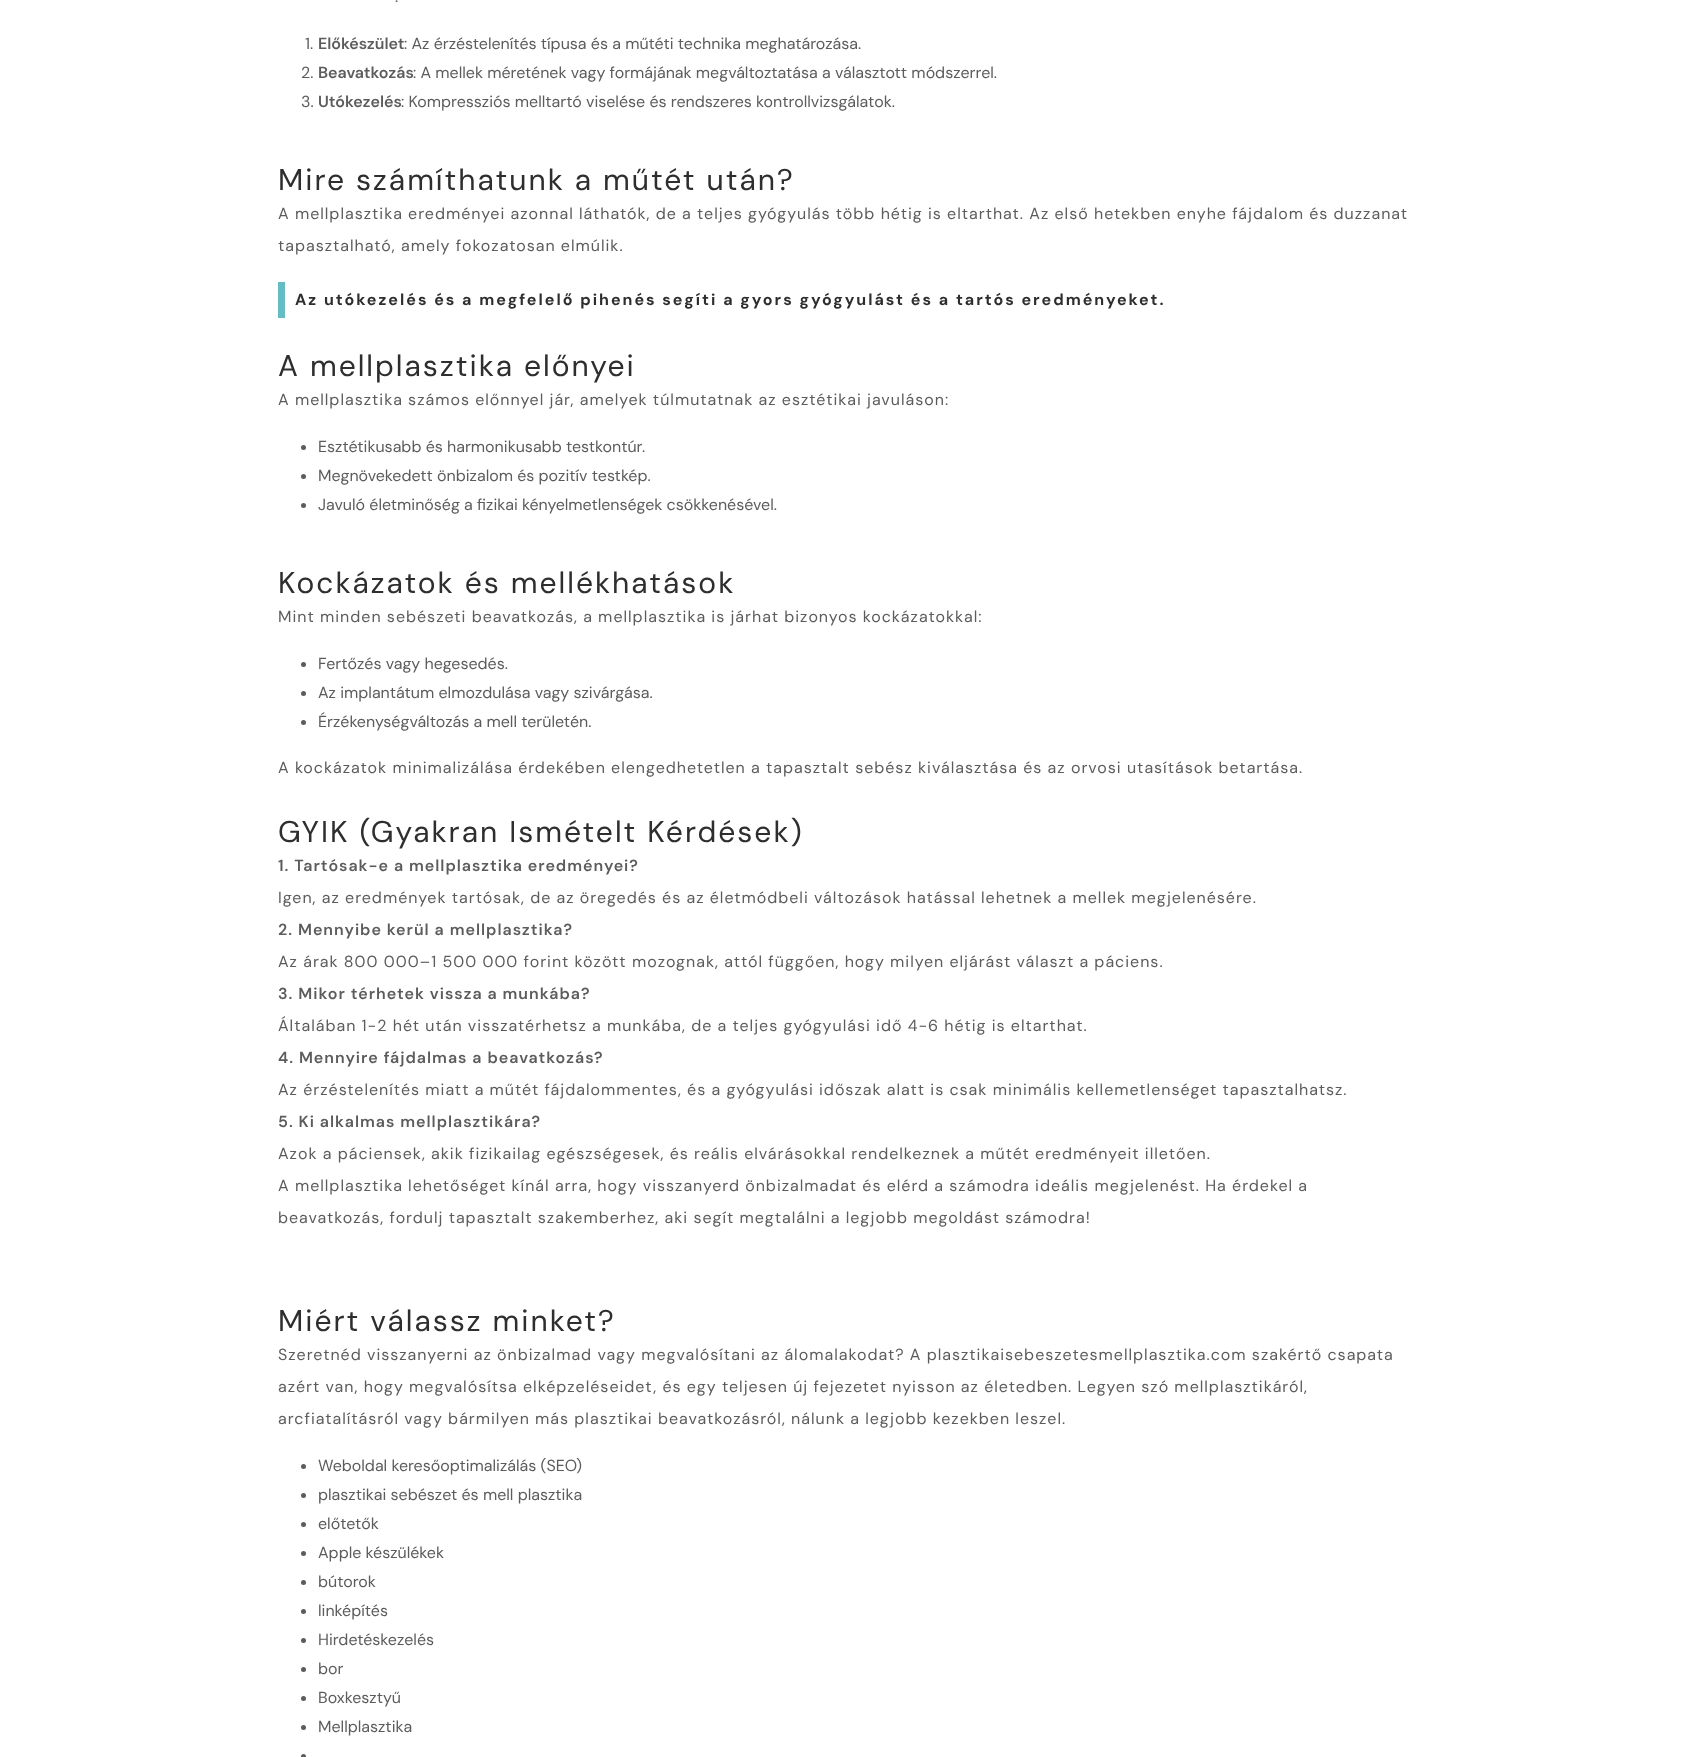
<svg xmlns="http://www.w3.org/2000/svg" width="1695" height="1757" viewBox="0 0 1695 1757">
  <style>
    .t1 { font: 16px DM Sans; letter-spacing: 1px; fill: #5c5c5c; }
    .t2 { font: 16px DM Sans; fill: #5c5c5c; }
    .t3 { font: 600 16px DM Sans; fill: #5c5c5c; }
    .t4 { font: 30px DM Sans; letter-spacing: 2px; fill: #2e2e2e; }
    .t5 { font: bold 16px DM Sans; letter-spacing: 2px; fill: #2e2e2e; }
    .t6 { font: 600 16px DM Sans; letter-spacing: 1px; fill: #5c5c5c; }
  </style>
  <rect width="100%" height="100%" fill="#fff"/>
  <text x="395" y="2" class="t1">.</text>
  <text x="305" y="49" class="t2">1.</text>
  <text x="318" y="49" class="t3">Előkészület</text>
  <text x="404" y="49" class="t2">: Az érzéstelenítés típusa és a műtéti technika meghatározása.</text>
  <text x="301" y="78" class="t2">2.</text>
  <text x="318" y="78" class="t3">Beavatkozás</text>
  <text x="413" y="78" class="t2">: A mellek méretének vagy formájának megváltoztatása a választott módszerrel.</text>
  <text x="301" y="107" class="t2">3.</text>
  <text x="318" y="107" class="t3">Utókezelés</text>
  <text x="401" y="107" class="t2">: Kompressziós melltartó viselése és rendszeres kontrollvizsgálatok.</text>
  <text x="278" y="190" class="t4">Mire számíthatunk a műtét után?</text>
  <text x="278" y="219" class="t1">A mellplasztika eredményei azonnal láthatók, de a teljes gyógyulás több hétig is eltarthat. Az első hetekben enyhe fájdalom és duzzanat</text>
  <text x="278" y="251" class="t1">tapasztalható, amely fokozatosan elmúlik.</text>
  <rect x="278" y="282" width="7" height="36" fill="#65bcc3"/>
  <text x="295" y="305" class="t5">Az utókezelés és a megfelelő pihenés segíti a gyors gyógyulást és a tartós eredményeket.</text>
  <text x="278" y="376" class="t4">A mellplasztika előnyei</text>
  <text x="278" y="405" class="t1">A mellplasztika számos előnnyel jár, amelyek túlmutatnak az esztétikai javuláson:</text>
  <circle cx="303.5" cy="447.5" r="2.5" fill="#5c5c5c"/>
  <text x="318" y="452" class="t2">Esztétikusabb és harmonikusabb testkontúr.</text>
  <circle cx="303.5" cy="476.5" r="2.5" fill="#5c5c5c"/>
  <text x="318" y="481" class="t2">Megnövekedett önbizalom és pozitív testkép.</text>
  <circle cx="303.5" cy="505.5" r="2.5" fill="#5c5c5c"/>
  <text x="318" y="510" class="t2">Javuló életminőség a fizikai kényelmetlenségek csökkenésével.</text>
  <text x="278" y="593" class="t4">Kockázatok és mellékhatások</text>
  <text x="278" y="622" class="t1">Mint minden sebészeti beavatkozás, a mellplasztika is járhat bizonyos kockázatokkal:</text>
  <circle cx="303.5" cy="664.5" r="2.5" fill="#5c5c5c"/>
  <text x="318" y="669" class="t2">Fertőzés vagy hegesedés.</text>
  <circle cx="303.5" cy="693.5" r="2.5" fill="#5c5c5c"/>
  <text x="318" y="698" class="t2">Az implantátum elmozdulása vagy szivárgása.</text>
  <circle cx="303.5" cy="722.5" r="2.5" fill="#5c5c5c"/>
  <text x="318" y="727" class="t2">Érzékenységváltozás a mell területén.</text>
  <text x="278" y="773" class="t1">A kockázatok minimalizálása érdekében elengedhetetlen a tapasztalt sebész kiválasztása és az orvosi utasítások betartása.</text>
  <text x="278" y="842" class="t4">GYIK (Gyakran Ismételt Kérdések)</text>
  <text x="278" y="871" class="t6">1. Tartósak-e a mellplasztika eredményei?</text>
  <text x="278" y="903" class="t1">Igen, az eredmények tartósak, de az öregedés és az életmódbeli változások hatással lehetnek a mellek megjelenésére.</text>
  <text x="278" y="935" class="t6">2. Mennyibe kerül a mellplasztika?</text>
  <text x="278" y="967" class="t1">Az árak 800 000–1 500 000 forint között mozognak, attól függően, hogy milyen eljárást választ a páciens.</text>
  <text x="278" y="999" class="t6">3. Mikor térhetek vissza a munkába?</text>
  <text x="278" y="1031" class="t1">Általában 1-2 hét után visszatérhetsz a munkába, de a teljes gyógyulási idő 4-6 hétig is eltarthat.</text>
  <text x="278" y="1063" class="t6">4. Mennyire fájdalmas a beavatkozás?</text>
  <text x="278" y="1095" class="t1">Az érzéstelenítés miatt a műtét fájdalommentes, és a gyógyulási időszak alatt is csak minimális kellemetlenséget tapasztalhatsz.</text>
  <text x="278" y="1127" class="t6">5. Ki alkalmas mellplasztikára?</text>
  <text x="278" y="1159" class="t1">Azok a páciensek, akik fizikailag egészségesek, és reális elvárásokkal rendelkeznek a műtét eredményeit illetően.</text>
  <text x="278" y="1191" class="t1">A mellplasztika lehetőséget kínál arra, hogy visszanyerd önbizalmadat és elérd a számodra ideális megjelenést. Ha érdekel a</text>
  <text x="278" y="1223" class="t1">beavatkozás, fordulj tapasztalt szakemberhez, aki segít megtalálni a legjobb megoldást számodra!</text>
  <text x="278" y="1331" class="t4">Miért válassz minket?</text>
  <text x="278" y="1360" class="t1">Szeretnéd visszanyerni az önbizalmad vagy megvalósítani az álomalakodat? A plasztikaisebeszetesmellplasztika.com szakértő csapata</text>
  <text x="278" y="1392" class="t1">azért van, hogy megvalósítsa elképzeléseidet, és egy teljesen új fejezetet nyisson az életedben. Legyen szó mellplasztikáról,</text>
  <text x="278" y="1424" class="t1">arcfiatalításról vagy bármilyen más plasztikai beavatkozásról, nálunk a legjobb kezekben leszel.</text>
  <circle cx="303.5" cy="1466.5" r="2.5" fill="#5c5c5c"/>
  <text x="318" y="1471" class="t2">Weboldal keresőoptimalizálás (SEO)</text>
  <circle cx="303.5" cy="1495.5" r="2.5" fill="#5c5c5c"/>
  <text x="318" y="1500" class="t2">plasztikai sebészet és mell plasztika</text>
  <circle cx="303.5" cy="1524.5" r="2.5" fill="#5c5c5c"/>
  <text x="318" y="1529" class="t2">előtetők</text>
  <circle cx="303.5" cy="1553.5" r="2.5" fill="#5c5c5c"/>
  <text x="318" y="1558" class="t2">Apple készülékek</text>
  <circle cx="303.5" cy="1582.5" r="2.5" fill="#5c5c5c"/>
  <text x="318" y="1587" class="t2">bútorok</text>
  <circle cx="303.5" cy="1611.5" r="2.5" fill="#5c5c5c"/>
  <text x="318" y="1616" class="t2">linképítés</text>
  <circle cx="303.5" cy="1640.5" r="2.5" fill="#5c5c5c"/>
  <text x="318" y="1645" class="t2">Hirdetéskezelés</text>
  <circle cx="303.5" cy="1669.5" r="2.5" fill="#5c5c5c"/>
  <text x="318" y="1674" class="t2">bor</text>
  <circle cx="303.5" cy="1698.5" r="2.5" fill="#5c5c5c"/>
  <text x="318" y="1703" class="t2">Boxkesztyű</text>
  <circle cx="303.5" cy="1727.5" r="2.5" fill="#5c5c5c"/>
  <text x="318" y="1732" class="t2">Mellplasztika</text>
  <circle cx="303.5" cy="1756.5" r="2.5" fill="#5c5c5c"/>
</svg>
